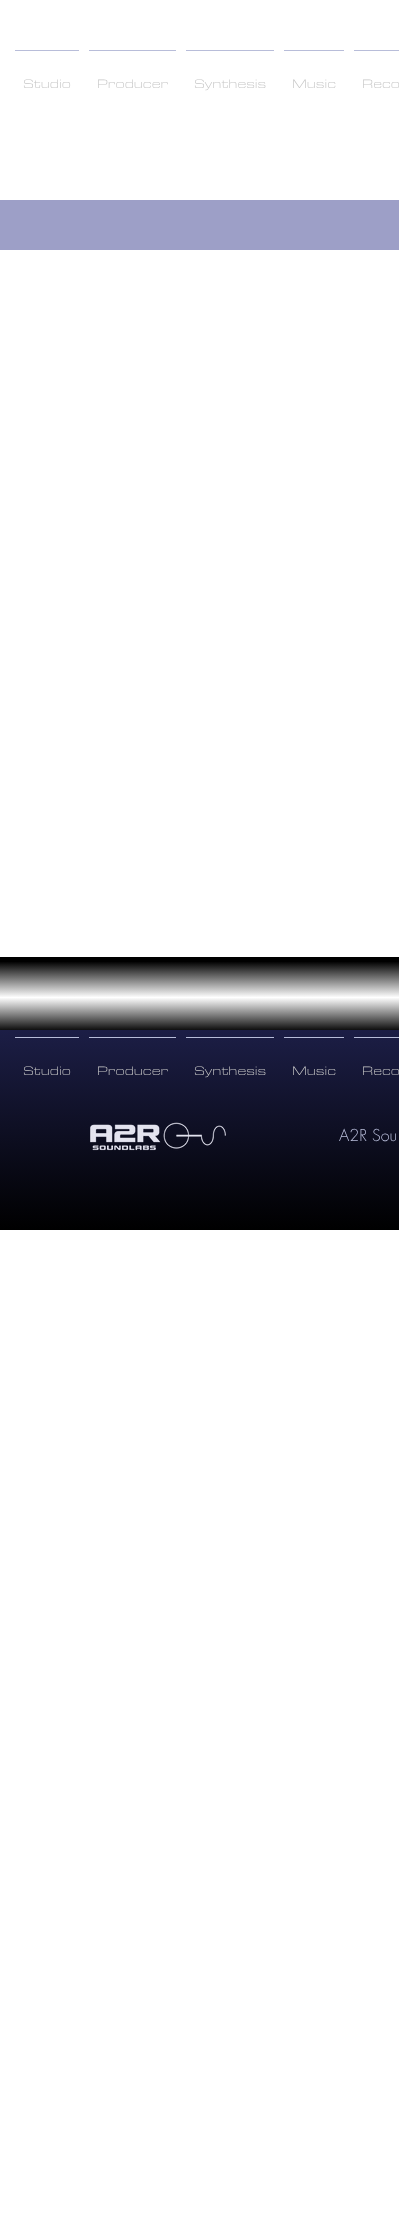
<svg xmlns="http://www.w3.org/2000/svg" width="399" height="2234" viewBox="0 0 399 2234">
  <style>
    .t1 { font: 300 15px 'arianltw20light'; fill: #c7c7c7; }
    .t2 { font: 300 16px futura; fill: #b8bdd9; }
  </style>
  <defs>
    <linearGradient id="g1" gradientUnits="userSpaceOnUse" x1="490" y1="1032" x2="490" y2="957"><stop offset="0" stop-color="#000"/><stop offset="0.46" stop-color="#fff"/><stop offset="0.94" stop-color="#000"/></linearGradient>
    <linearGradient id="g2" gradientUnits="userSpaceOnUse" x1="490" y1="1030" x2="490" y2="1230"><stop offset="0" stop-color="#1c1e46"/><stop offset="1" stop-color="#000"/></linearGradient>
  </defs>
  <rect width="100%" height="100%" fill="#fff"/>
  <rect x="15" y="50" width="64" height="1" fill="#b8bdd9"/>
  <text x="23" y="88" class="t1">Studio</text>
  <rect x="89" y="50" width="87" height="1" fill="#b8bdd9"/>
  <text x="97" y="88" class="t1">Producer</text>
  <rect x="186" y="50" width="88" height="1" fill="#b8bdd9"/>
  <text x="194" y="88" class="t1">Synthesis</text>
  <rect x="284" y="50" width="60" height="1" fill="#b8bdd9"/>
  <text x="292" y="88" class="t1">Music</text>
  <rect x="354" y="50" width="45" height="1" fill="#b8bdd9"/>
  <text x="362" y="88" class="t1">Reco</text>
  <rect x="0" y="200" width="399" height="50" fill="#9d9fc7"/>
  <rect x="0" y="957" width="399" height="73" fill="url(#g1)"/>
  <rect x="0" y="1030" width="399" height="200" fill="url(#g2)"/>
  <rect x="15" y="1037" width="64" height="1" fill="#b8bdd9"/>
  <text x="23" y="1075" class="t1">Studio</text>
  <rect x="89" y="1037" width="87" height="1" fill="#b8bdd9"/>
  <text x="97" y="1075" class="t1">Producer</text>
  <rect x="186" y="1037" width="88" height="1" fill="#b8bdd9"/>
  <text x="194" y="1075" class="t1">Synthesis</text>
  <rect x="284" y="1037" width="60" height="1" fill="#b8bdd9"/>
  <text x="292" y="1075" class="t1">Music</text>
  <rect x="354" y="1037" width="45" height="1" fill="#b8bdd9"/>
  <text x="362" y="1075" class="t1">Reco</text>
  <image x="90" y="1122" width="136" height="29" href="images/1.png"/>
  <text x="339" y="1141" class="t2">A2R Sou</text>
</svg>
